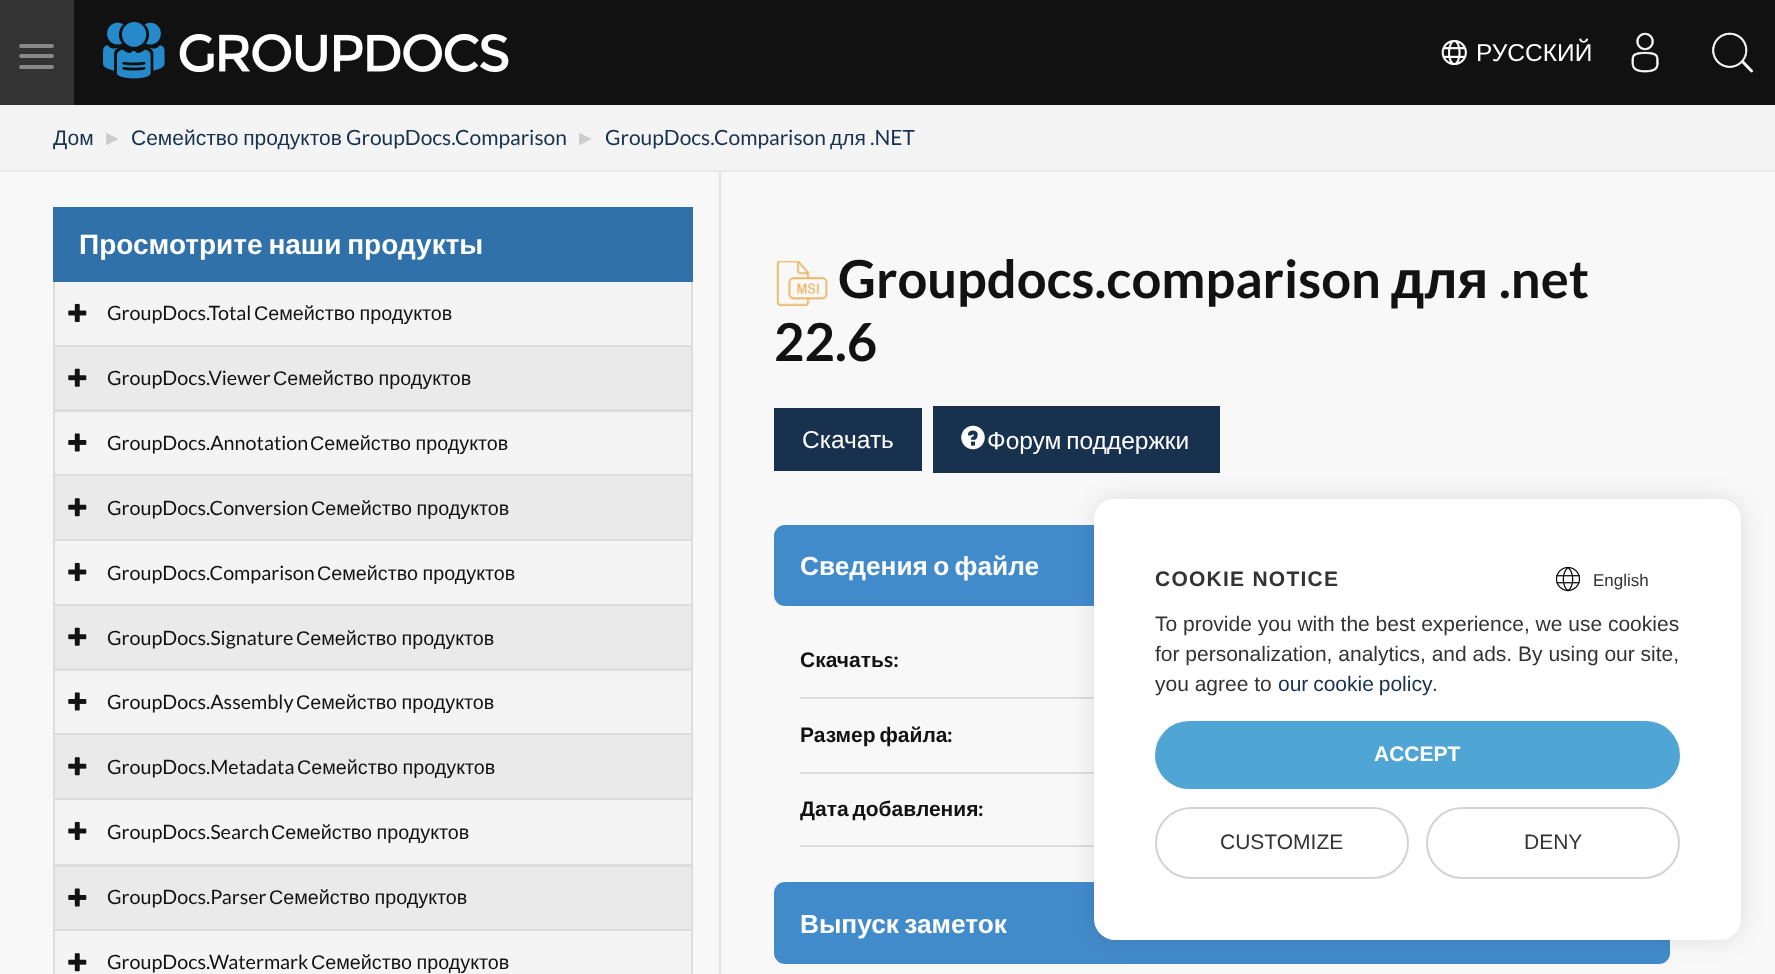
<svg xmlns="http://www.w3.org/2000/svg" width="1775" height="974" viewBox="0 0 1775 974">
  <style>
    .t1 { font: 24.5px Liberation Sans; fill: #fff; }
    .t2 { font: 21px Liberation Sans; fill: #17314f; }
    .t3 { font: 21px Liberation Sans; fill: #ccc; }
    .t4 { font: 21px Lato; fill: #17314f; }
    .t5 { font: bold 28px Liberation Sans; fill: #fff; }
    .t6 { font: 19.75px Lato; fill: #121212; }
    .t7 { font: 19.75px Liberation Sans; fill: #121212; }
    .t8 { font: bold 52.5px Lato; fill: #121212; }
    .t9 { font: bold 52.5px Liberation Sans; fill: #121212; }
    .t10 { font: bold 26.25px Liberation Sans; fill: #fff; }
    .t11 { font: bold 21px Liberation Sans; fill: #121212; }
    .t12 { font: bold 21px Lato; fill: #121212; }
    .t13 { font: bold 21px Liberation Sans; letter-spacing: 1.25px; fill: #333; }
    .t14 { font: 17px Liberation Sans; fill: #333; }
    .t15 { font: 21px Liberation Sans; fill: #333; }
    .t16 { font: bold 21px Liberation Sans; fill: #fff; }
  </style>
  <rect width="100%" height="100%" fill="#f4f4f4"/>
  <rect x="74" y="0" width="1701" height="105" fill="#111"/>
  <rect x="0" y="0" width="74" height="105" fill="#333"/>
  <rect x="19" y="44" width="35" height="4" rx="2" fill="#888"/>
  <rect x="19" y="54" width="35" height="4" rx="2" fill="#888"/>
  <rect x="19" y="65" width="35" height="4" rx="2" fill="#888"/>
  <image x="103" y="21" width="406" height="58" href="images/1.png"/>
  <image x="1441" y="40" width="26" height="25" href="images/2.png"/>
  <text x="1476" y="61" class="t1">РУССКИЙ</text>
  <image x="1631" y="32" width="28" height="41" href="images/3.png"/>
  <image x="1712" y="32" width="41" height="41" href="images/4.png"/>
  <rect x="0" y="170" width="1775" height="2" fill="#e9e9e9"/>
  <text x="53" y="145" class="t2">Дом</text>
  <text x="102" y="145" class="t3">►</text>
  <text x="131" y="145" word-spacing="-1" class="t2">Семейство продуктов</text>
  <text x="346" y="145" class="t4">GroupDocs.Comparison</text>
  <text x="575" y="145" class="t3">►</text>
  <text x="605" y="145" class="t4">GroupDocs.Comparison</text>
  <text x="830" y="145" class="t2">для</text>
  <text x="870" y="145" class="t4">.NET</text>
  <rect x="0" y="172" width="1775" height="802" fill="#f8f8f8"/>
  <rect x="719" y="172" width="2" height="802" fill="#e3e3e3"/>
  <rect x="53" y="207" width="640" height="75" fill="#3071a9"/>
  <text x="79" y="254" word-spacing="-2" class="t5">Просмотрите наши продукты</text>
  <rect x="55" y="282" width="636" height="63" fill="#f4f4f4"/>
  <rect x="691" y="282" width="2" height="65" fill="#ddd"/>
  <rect x="53" y="282" width="2" height="65" fill="#ddd"/>
  <image x="68" y="303" width="19" height="19" href="images/5.png"/>
  <text x="107" y="320" class="t6">GroupDocs.Total</text>
  <text x="254" y="320" word-spacing="-1" class="t7">Семейство продуктов</text>
  <rect x="54" y="346" width="638" height="64" fill="#eaeaea" stroke="#ddd" stroke-width="2"/>
  <image x="68" y="368" width="19" height="19" href="images/6.png"/>
  <text x="107" y="385" class="t6">GroupDocs.Viewer</text>
  <text x="273" y="385" word-spacing="-1" class="t7">Семейство продуктов</text>
  <rect x="54" y="411" width="638" height="64" fill="#f4f4f4" stroke="#ddd" stroke-width="2"/>
  <image x="68" y="433" width="19" height="19" href="images/7.png"/>
  <text x="107" y="450" class="t6">GroupDocs.Annotation</text>
  <text x="310" y="450" word-spacing="-1" class="t7">Семейство продуктов</text>
  <rect x="54" y="475" width="638" height="65" fill="#eaeaea" stroke="#ddd" stroke-width="2"/>
  <image x="68" y="498" width="19" height="19" href="images/8.png"/>
  <text x="107" y="515" class="t6">GroupDocs.Conversion</text>
  <text x="311" y="515" word-spacing="-1" class="t7">Семейство продуктов</text>
  <rect x="54" y="540" width="638" height="65" fill="#f4f4f4" stroke="#ddd" stroke-width="2"/>
  <image x="68" y="562" width="19" height="19" href="images/5.png"/>
  <text x="107" y="580" class="t6">GroupDocs.Comparison</text>
  <text x="317" y="580" word-spacing="-1" class="t7">Семейство продуктов</text>
  <rect x="54" y="605" width="638" height="64" fill="#eaeaea" stroke="#ddd" stroke-width="2"/>
  <image x="68" y="627" width="19" height="19" href="images/6.png"/>
  <text x="107" y="645" class="t6">GroupDocs.Signature</text>
  <text x="296" y="645" word-spacing="-1" class="t7">Семейство продуктов</text>
  <rect x="54" y="670" width="638" height="64" fill="#f4f4f4" stroke="#ddd" stroke-width="2"/>
  <image x="68" y="692" width="19" height="19" href="images/7.png"/>
  <text x="107" y="709" class="t6">GroupDocs.Assembly</text>
  <text x="296" y="709" word-spacing="-1" class="t7">Семейство продуктов</text>
  <rect x="54" y="734" width="638" height="65" fill="#eaeaea" stroke="#ddd" stroke-width="2"/>
  <image x="68" y="757" width="19" height="19" href="images/8.png"/>
  <text x="107" y="774" class="t6">GroupDocs.Metadata</text>
  <text x="297" y="774" word-spacing="-1" class="t7">Семейство продуктов</text>
  <rect x="54" y="799" width="638" height="66" fill="#f4f4f4" stroke="#ddd" stroke-width="2"/>
  <image x="68" y="821" width="19" height="19" href="images/5.png"/>
  <text x="107" y="839" class="t6">GroupDocs.Search</text>
  <text x="271" y="839" word-spacing="-1" class="t7">Семейство продуктов</text>
  <rect x="54" y="866" width="638" height="64" fill="#eaeaea" stroke="#ddd" stroke-width="2"/>
  <image x="68" y="888" width="19" height="19" href="images/9.png"/>
  <text x="107" y="904" class="t6">GroupDocs.Parser</text>
  <text x="269" y="904" word-spacing="-1" class="t7">Семейство продуктов</text>
  <rect x="54" y="930" width="638" height="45" fill="#f4f4f4" stroke="#ddd" stroke-width="2"/>
  <image x="68" y="953" width="19" height="19" href="images/10.png"/>
  <text x="107" y="969" class="t6">GroupDocs.Watermark</text>
  <text x="311" y="969" word-spacing="-1" class="t7">Семейство продуктов</text>
  <image x="776" y="261" width="52" height="45" href="images/11.png"/>
  <text x="838" y="298" class="t8">Groupdocs.comparison</text>
  <text x="1391" y="298" class="t9">для</text>
  <text x="1499" y="298" class="t8">.net</text>
  <text x="774" y="361" class="t8">22.6</text>
  <rect x="774" y="408" width="148" height="63" fill="#17314f"/>
  <text x="802" y="448" class="t1">Скачать</text>
  <rect x="933" y="406" width="287" height="67" fill="#17314f"/>
  <image x="961" y="425" width="24" height="25" href="images/12.png"/>
  <text x="987" y="449" word-spacing="-2" class="t1">Форум поддержки</text>
  <rect x="774" y="525" width="896" height="81" rx="11" fill="#428bca"/>
  <text x="800" y="575" word-spacing="-2" class="t10">Сведения о файле</text>
  <rect x="800" y="697" width="294" height="2" fill="#ddd"/>
  <text x="800" y="667" class="t11">Скачать</text>
  <text x="884" y="667" class="t12">s:</text>
  <rect x="800" y="772" width="294" height="2" fill="#ddd"/>
  <text x="800" y="742" word-spacing="-2" class="t11">Размер файла</text>
  <text x="947" y="742" class="t12">:</text>
  <rect x="800" y="845" width="294" height="2" fill="#ddd"/>
  <text x="800" y="816" word-spacing="-2" class="t11">Дата добавления</text>
  <text x="978" y="816" class="t12">:</text>
  <rect x="774" y="882" width="896" height="82" rx="11" fill="#428bca"/>
  <text x="800" y="933" word-spacing="-2" class="t10">Выпуск заметок</text>
  <rect x="1094" y="499" width="647" height="441" rx="21" fill="#0000001a" filter="blur(11.5px)"/>
  <rect x="1094" y="499" width="647" height="441" rx="21" fill="#fff"/>
  <path d="M1115 499H1720C1731.5 499 1741 508.5 1741 520V600H1094V520C1094 508.5 1103.5 499 1115 499Z" fill="#fff"/>
  <text x="1155" y="586" class="t13">COOKIE NOTICE</text>
  <image x="1555" y="566" width="26" height="26" href="images/13.png"/>
  <text x="1593" y="586" class="t14">English</text>
  <text x="1155" y="631" class="t15">To provide you with the best experience, we use cookies</text>
  <text x="1155" y="661" class="t15">for personalization, analytics, and ads. By using our site,</text>
  <text x="1155" y="691" class="t15">you agree to</text>
  <text x="1278" y="691" word-spacing="-1" class="t2">our cookie policy</text>
  <text x="1432" y="691" class="t15">.</text>
  <rect x="1155" y="721" width="525" height="68" rx="34" fill="#4fa5d3"/>
  <text x="1374" y="761" class="t16">ACCEPT</text>
  <rect x="1156" y="808" width="252" height="70" rx="35" fill="none" stroke="#d3d3d3" stroke-width="2"/>
  <text x="1220" y="849" class="t15">CUSTOMIZE</text>
  <rect x="1427" y="808" width="252" height="70" rx="35" fill="none" stroke="#d3d3d3" stroke-width="2"/>
  <text x="1524" y="849" class="t15">DENY</text>
</svg>
